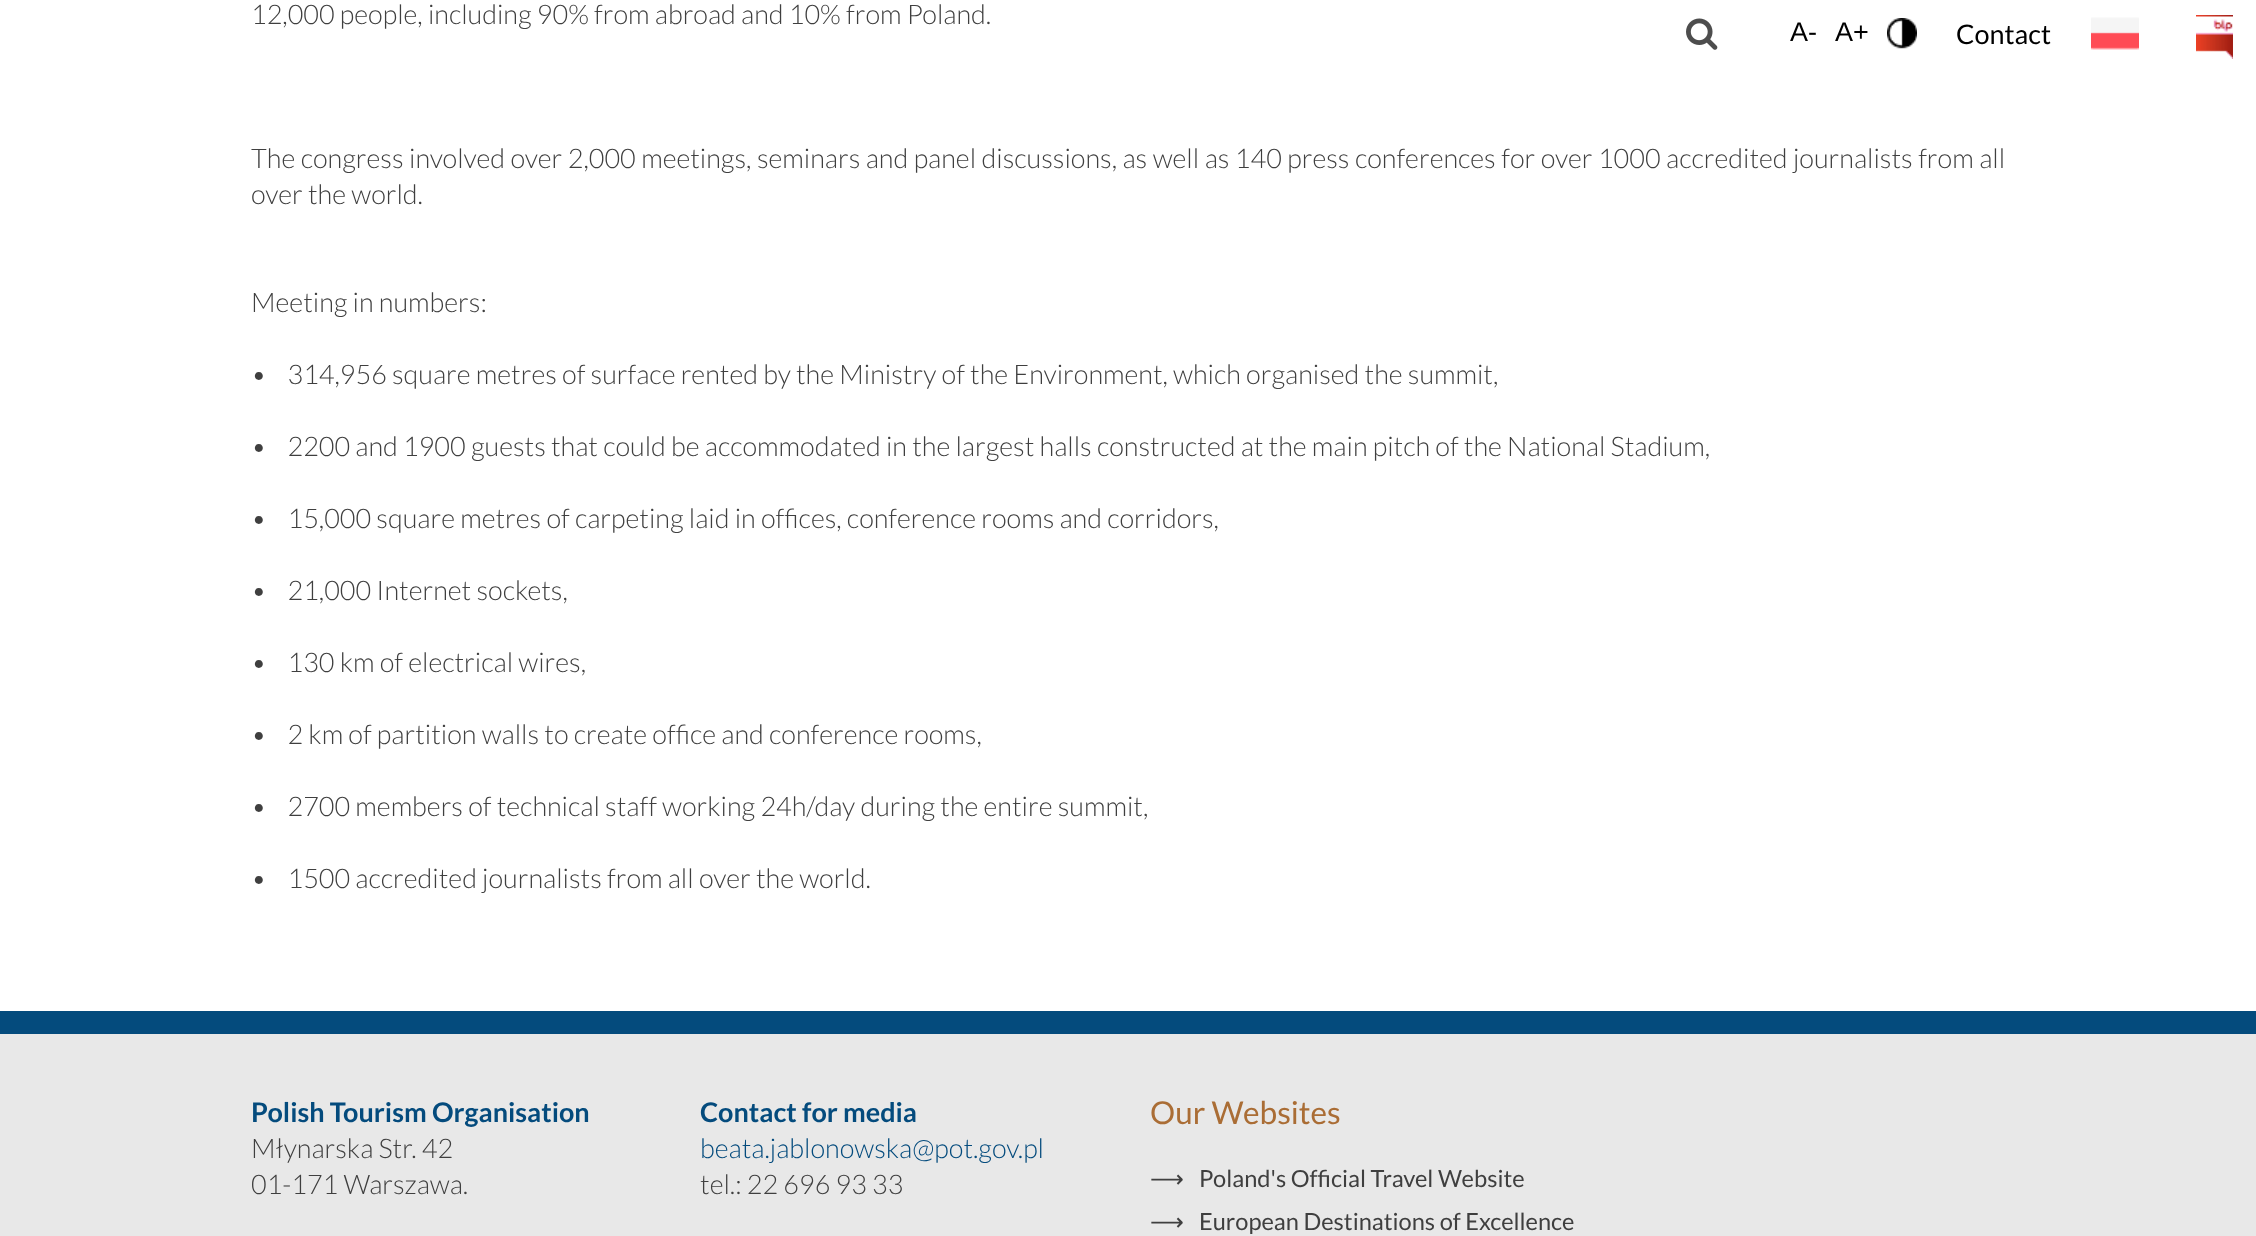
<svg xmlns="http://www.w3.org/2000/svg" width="2256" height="1236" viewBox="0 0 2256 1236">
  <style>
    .t1 { font: 300 27px Lato; fill: #3f3f3f; }
    .t2 { font: 27px Liberation Sans; fill: #000; }
    .t3 { font: 27px Lato; fill: #000; }
    .t4 { font: bold 27px Lato; fill: #044b7d; }
    .t5 { font: 300 27px Lato; fill: #044b7d; }
    .t6 { font: 31.5px Lato; fill: #aa6d35; }
    .t7 { font: 23.6px DejaVu Sans; fill: #3f3f3f; }
    .t8 { font: 23.6px Lato; fill: #3f3f3f; }
  </style>
  <rect width="100%" height="100%" fill="#fff"/>
  <text x="251" y="24" class="t1">12,000 people, including 90% from abroad and 10% from Poland.</text>
  <text x="251" y="168" word-spacing="0.25" class="t1">The congress involved over 2,000 meetings, seminars and panel discussions, as well as 140 press conferences for over 1000 accredited journalists from all</text>
  <text x="251" y="204" class="t1">over the world.</text>
  <text x="251" y="312" class="t1">Meeting in numbers:</text>
  <text x="251" y="384" class="t1" xml:space="preserve">•    314,956 square metres of surface rented by the Ministry of the Environment, which organised the summit,</text>
  <text x="251" y="456" class="t1" xml:space="preserve">•    2200 and 1900 guests that could be accommodated in the largest halls constructed at the main pitch of the National Stadium,</text>
  <text x="251" y="528" class="t1" xml:space="preserve">•    15,000 square metres of carpeting laid in offices, conference rooms and corridors,</text>
  <text x="251" y="600" class="t1" xml:space="preserve">•    21,000 Internet sockets,</text>
  <text x="251" y="672" class="t1" xml:space="preserve">•    130 km of electrical wires,</text>
  <text x="251" y="744" class="t1" xml:space="preserve">•    2 km of partition walls to create office and conference rooms,</text>
  <text x="251" y="816" class="t1" xml:space="preserve">•    2700 members of technical staff working 24h/day during the entire summit,</text>
  <text x="251" y="888" class="t1" xml:space="preserve">•    1500 accredited journalists from all over the world.</text>
  <image x="1686" y="18" width="32" height="32" href="images/1.png"/>
  <text x="1790" y="41" class="t2">A-</text>
  <text x="1835" y="41" class="t2">A+</text>
  <image x="1887" y="18" width="30" height="31" href="images/2.png"/>
  <text x="1956" y="44" class="t3">Contact</text>
  <image x="2091" y="17" width="48" height="33" href="images/3.png"/>
  <image x="2196" y="15" width="37" height="44" href="images/4.png"/>
  <rect x="0" y="1034" width="2256" height="202" fill="#e8e8e8"/>
  <rect x="0" y="1011" width="2256" height="23" fill="#044b7d"/>
  <text x="251" y="1122" class="t4">Polish Tourism Organisation</text>
  <text x="251" y="1158" class="t1">Młynarska Str. 42</text>
  <text x="251" y="1194" class="t1">01-171 Warszawa.</text>
  <text x="700" y="1122" class="t4">Contact for media</text>
  <text x="700" y="1158" class="t5">beata.jablonowska@pot.gov.pl</text>
  <text x="700" y="1194" class="t1">tel.: 22 696 93 33</text>
  <text x="1150" y="1124" class="t6">Our Websites</text>
  <text x="1150" y="1187" class="t7">⟶</text>
  <text x="1199" y="1187" class="t8">Poland's Official Travel Website</text>
  <text x="1150" y="1230" class="t7">⟶</text>
  <text x="1199" y="1230" class="t8">European Destinations of Excellence</text>
</svg>
